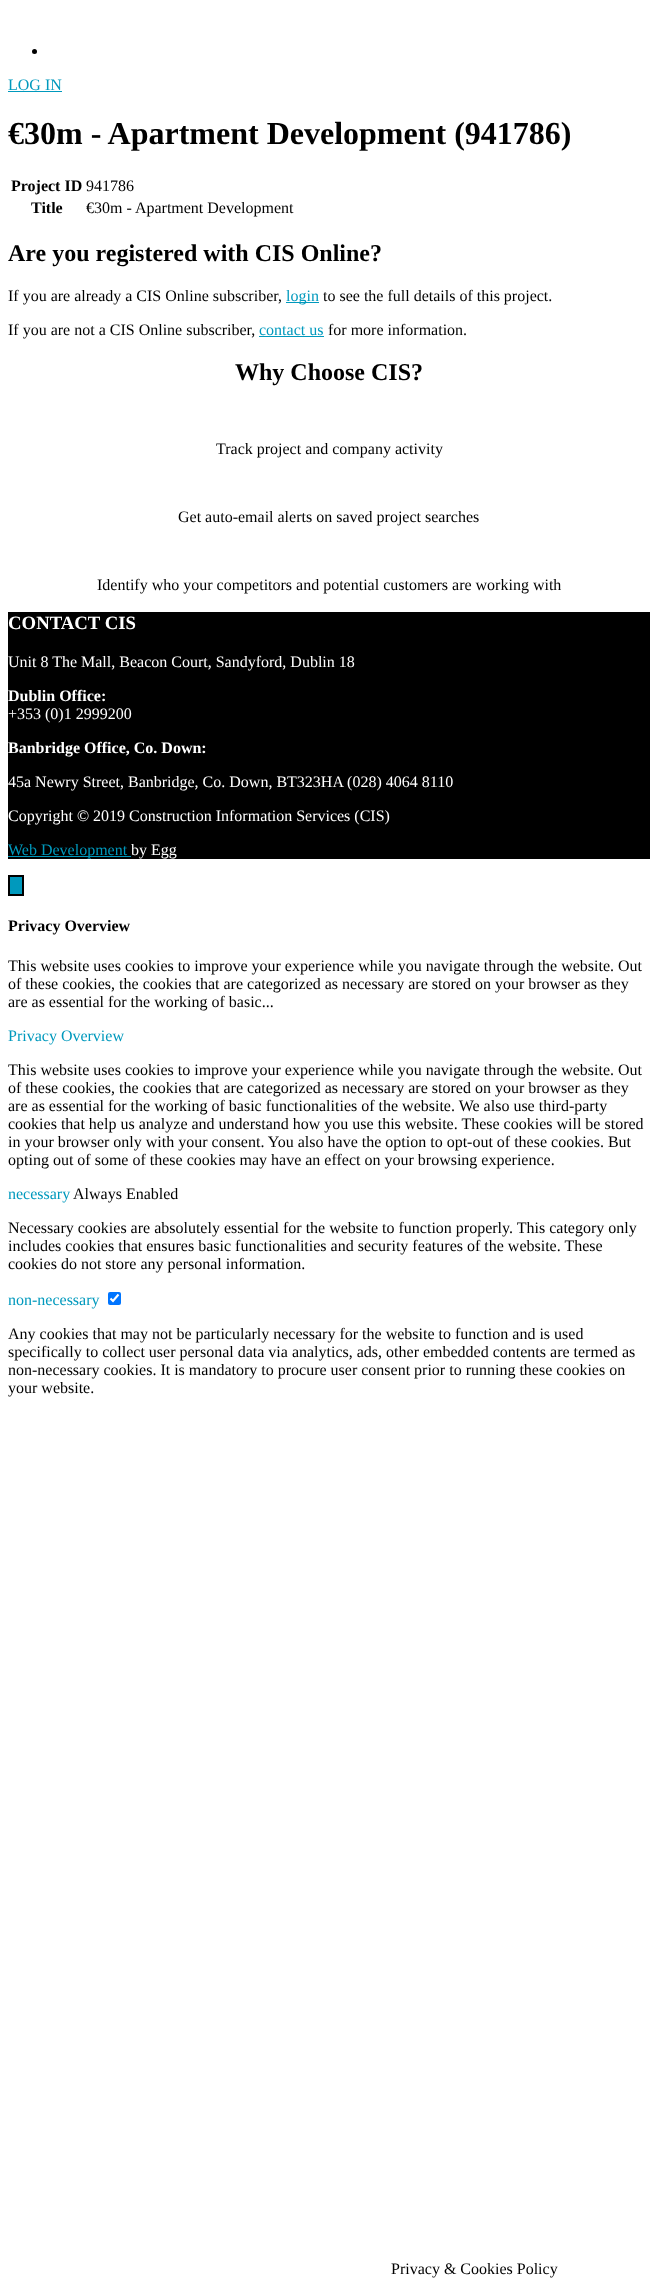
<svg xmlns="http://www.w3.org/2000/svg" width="658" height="2278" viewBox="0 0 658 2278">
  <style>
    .t1 { font: 16px Liberation Serif; fill: #0099bd; }
    .t2 { font: bold 32px Liberation Serif; fill: #000; }
    .t3 { font: bold 16px Liberation Serif; fill: #000; }
    .t4 { font: 16px Liberation Serif; fill: #000; }
    .t5 { font: bold 24px Liberation Serif; fill: #000; }
    .t6 { font: bold 18.75px Liberation Serif; fill: #fff; }
    .t7 { font: 16px Liberation Serif; fill: #fff; }
    .t8 { font: bold 16px Liberation Serif; fill: #fff; }
  </style>
  <rect width="100%" height="100%" fill="#fff"/>
  <circle cx="34.5" cy="51.5" r="2.5" fill="#000"/>
  <text x="8" y="90" class="t1">LOG IN</text>
  <rect x="8" y="91" width="54" height="1" fill="#0099bd"/>
  <text x="8" y="144" class="t2">€30m - Apartment Development (941786)</text>
  <text x="11" y="191" class="t3">Project ID</text>
  <text x="86" y="191" class="t4">941786</text>
  <text x="31" y="213" class="t3">Title</text>
  <text x="86" y="213" class="t4">€30m - Apartment Development</text>
  <text x="8" y="261" class="t5">Are you registered with CIS Online?</text>
  <text x="8" y="301" class="t4">If you are already a CIS Online subscriber,</text>
  <rect x="286" y="302" width="33" height="1" fill="#0099bd"/>
  <text x="286" y="301" class="t1">login</text>
  <text x="323" y="301" class="t4">to see the full details of this project.</text>
  <text x="8" y="335" class="t4">If you are not a CIS Online subscriber,</text>
  <text x="259" y="335" class="t1">contact us</text>
  <rect x="259" y="336" width="65" height="1" fill="#0099bd"/>
  <text x="328" y="335" class="t4">for more information.</text>
  <text x="235" y="380" class="t5">Why Choose CIS?</text>
  <text x="216" y="454" class="t4">Track project and company activity</text>
  <text x="178" y="522" class="t4">Get auto-email alerts on saved project searches</text>
  <text x="97" y="590" class="t4">Identify who your competitors and potential customers are working with</text>
  <rect x="8" y="612" width="642" height="247" fill="#000"/>
  <text x="8" y="629" class="t6">CONTACT CIS</text>
  <text x="8" y="667" class="t7">Unit 8 The Mall, Beacon Court, Sandyford, Dublin 18</text>
  <text x="8" y="701" class="t8">Dublin Office:</text>
  <text x="8" y="719" class="t7">+353 (0)1 2999200</text>
  <text x="8" y="753" class="t8">Banbridge Office, Co. Down:</text>
  <text x="8" y="787" class="t7">45a Newry Street, Banbridge, Co. Down, BT323HA (028) 4064 8110</text>
  <text x="8" y="821" class="t7">Copyright © 2019 Construction Information Services (CIS)</text>
  <rect x="8" y="856" width="123" height="1" fill="#0099bd"/>
  <text x="8" y="855" class="t1">Web Development</text>
  <text x="131" y="855" class="t7">by Egg</text>
  <rect x="9" y="876" width="14" height="19" fill="#0099bd" stroke="#000" stroke-width="2"/>
  <text x="8" y="931" class="t3">Privacy Overview</text>
  <text x="8" y="971" class="t4">This website uses cookies to improve your experience while you navigate through the website. Out</text>
  <text x="8" y="989" class="t4">of these cookies, the cookies that are categorized as necessary are stored on your browser as they</text>
  <text x="8" y="1007" class="t4">are as essential for the working of basic...</text>
  <text x="8" y="1041" class="t1">Privacy Overview</text>
  <text x="8" y="1075" class="t4">This website uses cookies to improve your experience while you navigate through the website. Out</text>
  <text x="8" y="1093" class="t4">of these cookies, the cookies that are categorized as necessary are stored on your browser as they</text>
  <text x="8" y="1111" class="t4">are as essential for the working of basic functionalities of the website. We also use third-party</text>
  <text x="8" y="1129" class="t4">cookies that help us analyze and understand how you use this website. These cookies will be stored</text>
  <text x="8" y="1147" class="t4">in your browser only with your consent. You also have the option to opt-out of these cookies. But</text>
  <text x="8" y="1165" class="t4">opting out of some of these cookies may have an effect on your browsing experience.</text>
  <text x="8" y="1199" class="t1">necessary</text>
  <text x="73" y="1199" class="t4">Always Enabled</text>
  <text x="8" y="1233" class="t4">Necessary cookies are absolutely essential for the website to function properly. This category only</text>
  <text x="8" y="1251" class="t4">includes cookies that ensures basic functionalities and security features of the website. These</text>
  <text x="8" y="1269" class="t4">cookies do not store any personal information.</text>
  <text x="8" y="1305" class="t1">non-necessary</text>
  <rect x="108" y="1292" width="13" height="13" rx="2" fill="#0075ff"/>
  <path d="M110.5 1298.5L113 1301L118.5 1294.5" fill="none" stroke="#fff" stroke-width="2.1"/>
  <text x="8" y="1339" class="t4">Any cookies that may not be particularly necessary for the website to function and is used</text>
  <text x="8" y="1357" class="t4">specifically to collect user personal data via analytics, ads, other embedded contents are termed as</text>
  <text x="8" y="1375" class="t4">non-necessary cookies. It is mandatory to procure user consent prior to running these cookies on</text>
  <text x="8" y="1393" class="t4">your website.</text>
  <text x="391" y="2274" class="t4">Privacy &amp; Cookies Policy</text>
</svg>
